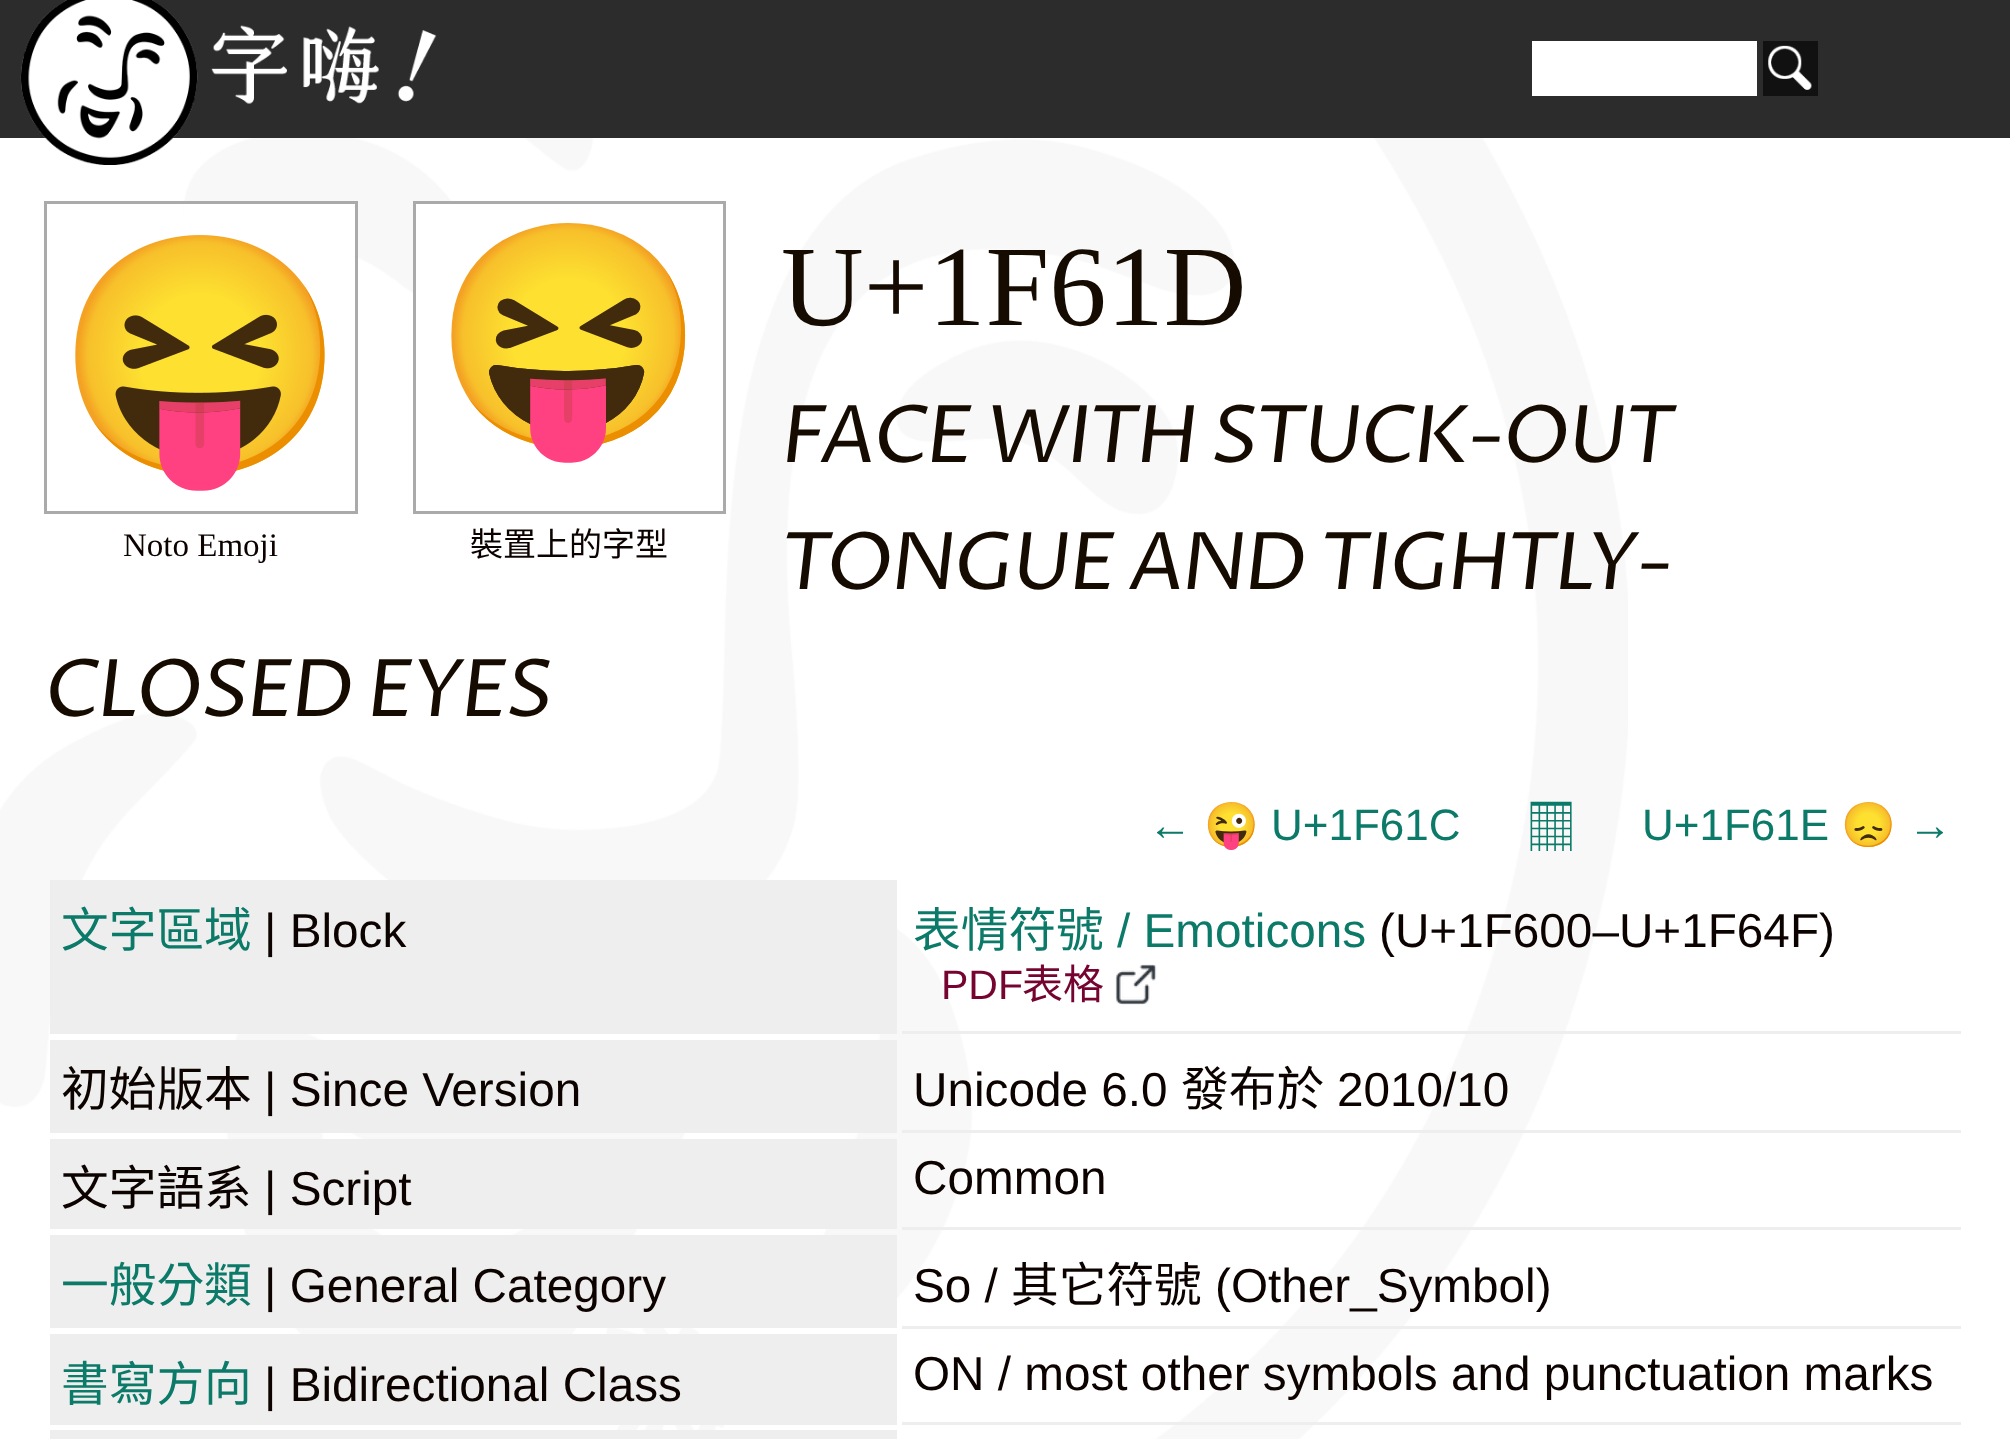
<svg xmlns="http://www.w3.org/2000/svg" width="2010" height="1439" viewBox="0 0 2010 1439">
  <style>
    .t1 { font: 220px Noto Color Emoji; fill: #0c0301; }
    .t2 { font: 33px Noto Sans CJK TC; fill: #0c0301; }
    .t3 { font: 114.5px Liberation Serif; fill: #150b00; }
    .t4 { font: italic 79.25px Proza Libre; letter-spacing: -2.75px; fill: #150b00; }
    .t5 { font: 33px Liberation Serif; fill: #0c0301; }
    .t6 { font: 44px Liberation Sans; fill: #0c7a68; }
    .t7 { font: 44px Noto Color Emoji; fill: #0c7a68; }
    .t8 { font: 66px FreeSerif; fill: #0c7a68; }
    .t9 { font: 47.7px Noto Sans CJK TC; fill: #0c7a68; }
    .t10 { font: 47.7px Liberation Sans; fill: #0c0301; }
    .t11 { font: 47.7px Liberation Sans; fill: #0c7a68; }
    .t12 { font: 41px Liberation Sans; fill: #750530; }
    .t13 { font: 41px Noto Sans CJK TC; fill: #750530; }
    .t14 { font: 47.7px Noto Sans CJK TC; fill: #0c0301; }
  </style>
  <rect width="100%" height="100%" fill="#fff"/>
  <image x="0" y="138" width="1628" height="1301" href="images/1.png"/>
  <rect x="0" y="0" width="2010" height="138" fill="#2c2c2c"/>
  <image x="20" y="0" width="417" height="165" href="images/2.png"/>
  <rect x="1532" y="41" width="225" height="55" fill="#fff"/>
  <rect x="1763" y="41" width="55" height="55" fill="#111"/>
  <image x="1768" y="45" width="44" height="45" href="images/3.png"/>
  <rect x="416" y="204" width="75" height="114" fill="#fff"/>
  <rect x="414.5" y="202.5" width="310" height="310" fill="none" stroke="#aaa" stroke-width="3"/>
  <text x="432" y="413" class="t1">😝</text>
  <text x="470" y="556" class="t2">裝置上的字型</text>
  <text x="781" y="325" class="t3">U+1F61D</text>
  <text x="781" y="462" class="t4">FACE WITH STUCK-OUT</text>
  <text x="781" y="589" class="t4">TONGUE AND TIGHTLY-</text>
  <text x="44" y="716" class="t4">CLOSED EYES</text>
  <rect x="184" y="204" width="171" height="52" fill="#fff"/>
  <image x="75" y="235" width="250" height="256" href="images/4.png"/>
  <rect x="45.5" y="202.5" width="311" height="310" fill="none" stroke="#aaa" stroke-width="3"/>
  <text x="123" y="556" class="t5">Noto Emoji</text>
  <text x="1148" y="840" class="t6">←</text>
  <text x="1204" y="840" class="t7">😜</text>
  <text x="1271" y="840" class="t6">U+1F61C</text>
  <text x="1529" y="851" class="t8">𝄜</text>
  <text x="1642" y="840" class="t6">U+1F61E</text>
  <text x="1841" y="840" class="t7">😞</text>
  <text x="1908" y="840" class="t6">→</text>
  <rect x="50" y="880" width="847" height="154" fill="#eee"/>
  <text x="61" y="947" class="t9">文字區域</text>
  <text x="264" y="947" class="t10">| Block</text>
  <rect x="902" y="1031" width="1059" height="3" fill="#eee"/>
  <text x="913" y="947" class="t9">表情符號</text>
  <text x="1117" y="947" class="t11">/ Emoticons</text>
  <text x="1379" y="947" class="t10">(U+1F600–U+1F64F)</text>
  <text x="941" y="999" class="t12">PDF</text>
  <text x="1022" y="999" class="t13">表格</text>
  <image x="1115" y="964" width="42" height="41" href="images/5.png"/>
  <rect x="50" y="1040" width="847" height="93" fill="#eee"/>
  <text x="61" y="1106" class="t14">初始版本</text>
  <text x="264" y="1106" class="t10">| Since Version</text>
  <rect x="902" y="1130" width="1059" height="3" fill="#eee"/>
  <text x="913" y="1106" class="t10">Unicode 6.0</text>
  <text x="1181" y="1106" class="t14">發布於</text>
  <text x="1337" y="1106" class="t10">2010/10</text>
  <rect x="50" y="1139" width="847" height="90" fill="#eee"/>
  <text x="61" y="1205" class="t14">文字語系</text>
  <text x="264" y="1205" class="t10">| Script</text>
  <rect x="902" y="1227" width="1059" height="3" fill="#eee"/>
  <text x="913" y="1194" class="t10">Common</text>
  <rect x="50" y="1235" width="847" height="93" fill="#eee"/>
  <text x="61" y="1302" class="t9">一般分類</text>
  <text x="264" y="1302" class="t10">| General Category</text>
  <rect x="902" y="1326" width="1059" height="3" fill="#eee"/>
  <text x="913" y="1302" class="t10">So /</text>
  <text x="1011" y="1302" class="t14">其它符號</text>
  <text x="1215" y="1302" class="t10">(Other_Symbol)</text>
  <rect x="50" y="1334" width="847" height="91" fill="#eee"/>
  <text x="61" y="1401" class="t9">書寫方向</text>
  <text x="264" y="1401" class="t10">| Bidirectional Class</text>
  <rect x="902" y="1422" width="1059" height="3" fill="#eee"/>
  <text x="913" y="1390" class="t10">ON / most other symbols and punctuation marks</text>
  <rect x="50" y="1430" width="847" height="9" fill="#eee"/>
</svg>
